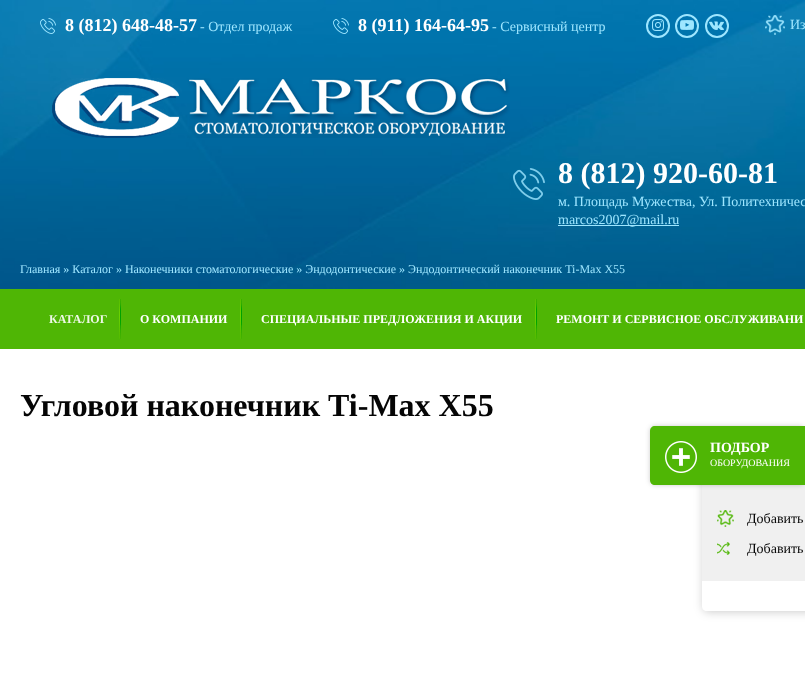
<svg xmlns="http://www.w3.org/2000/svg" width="805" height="693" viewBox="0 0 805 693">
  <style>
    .t1 { font: bold 18px Liberation Serif; fill: #fff; }
    .t2 { font: 14px Liberation Serif; fill: #9ee6ff; }
    .t3 { font: bold 30px Liberation Serif; fill: #fff; }
    .t4 { font: 12px Liberation Serif; fill: #9ee6ff; }
    .t5 { font: bold 12px Liberation Serif; fill: #edf8e6; }
    .t6 { font: bold 12px Liberation Serif; fill: #fff; }
    .t7 { font: bold 32px Liberation Serif; fill: #050505; }
    .t8 { font: 14px Liberation Serif; fill: #050505; }
    .t9 { font: bold 14px Liberation Serif; fill: #fff; }
    .t10 { font: 10px Liberation Serif; fill: #fff; }
  </style>
  <defs>
    <clipPath id="clip1"><path d="M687 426H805V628H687ZM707 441H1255C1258 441 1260 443 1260 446V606C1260 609 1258 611 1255 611H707C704 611 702 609 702 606V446C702 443 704 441 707 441Z" clip-rule="evenodd"/></clipPath>
  </defs>
  <rect width="100%" height="100%" fill="#fff"/>
  <image x="0" y="0" width="805" height="289" href="images/1.png"/>
  <image x="40" y="18" width="16" height="16" href="images/2.png"/>
  <text x="65" y="31" class="t1">8 (812) 648-48-57</text>
  <text x="200" y="31" class="t2">- Отдел продаж</text>
  <image x="333" y="18" width="16" height="16" href="images/3.png"/>
  <text x="358" y="31" class="t1">8 (911) 164-64-95</text>
  <text x="492" y="31" class="t2">- Сервисный центр</text>
  <circle cx="658" cy="26" r="11" fill="none" stroke="#9ee6ff" stroke-width="2"/>
  <image x="652" y="19" width="12" height="12" href="images/4.png"/>
  <circle cx="687" cy="26" r="11" fill="none" stroke="#9ee6ff" stroke-width="2"/>
  <image x="680" y="20" width="14" height="10" href="images/5.png"/>
  <circle cx="717" cy="26" r="11" fill="none" stroke="#9ee6ff" stroke-width="2"/>
  <image x="709" y="21" width="15" height="9" href="images/6.png"/>
  <image x="765" y="15" width="20" height="20" href="images/7.png"/>
  <text x="790" y="29" class="t2">Из</text>
  <image x="52" y="78" width="458" height="60" href="images/8.png"/>
  <image x="513" y="168" width="32" height="32" href="images/9.png"/>
  <text x="558" y="183" class="t3">8 (812) 920-60-81</text>
  <text x="558" y="206" class="t2">м. Площадь Мужества, Ул. Политехничес</text>
  <rect x="558" y="225" width="121" height="1" fill="#9ee6ff"/>
  <text x="558" y="224" class="t2">marcos2007@mail.ru</text>
  <text x="20" y="273" class="t4">Главная » Каталог » Наконечники стоматологические » Эндодонтические » Эндодонтический наконечник Ti-Max X55</text>
  <rect x="0" y="289" width="805" height="60" fill="#4fb605"/>
  <image x="119" y="299" width="2" height="40" href="images/10.png"/>
  <text x="49" y="323" class="t5">КАТАЛОГ</text>
  <image x="240" y="299" width="2" height="40" href="images/10.png"/>
  <text x="140" y="323" class="t6">О КОМПАНИИ</text>
  <image x="535" y="299" width="2" height="40" href="images/10.png"/>
  <text x="261" y="323" class="t6">СПЕЦИАЛЬНЫЕ ПРЕДЛОЖЕНИЯ И АКЦИИ</text>
  <text x="556" y="323" class="t6">РЕМОНТ И СЕРВИСНОЕ ОБСЛУЖИВАНИ</text>
  <text x="20" y="416" class="t7">Угловой наконечник Ti-Max X55</text>
  <g clip-path="url(#clip1)">
    <rect x="703" y="442" width="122" height="170" rx="5" fill="#00000033" filter="blur(5px)"/>
  </g>
  <rect x="702" y="485" width="103" height="96" fill="#f0f0f0"/>
  <image x="717" y="510" width="17" height="17" href="images/11.png"/>
  <text x="747" y="523" class="t8">Добавить</text>
  <image x="717" y="542" width="13" height="13" href="images/12.png"/>
  <text x="747" y="553" class="t8">Добавить</text>
  <rect x="650" y="426" width="155" height="59" rx="5" fill="#00000033" filter="blur(2.5px)"/>
  <path d="M655 426H805V485H655C652 485 650 483 650 480V431C650 428 652 426 655 426Z" fill="#4fb605"/>
  <image x="665" y="441" width="32" height="32" href="images/13.png"/>
  <text x="710" y="452" class="t9">ПОДБОР</text>
  <text x="710" y="466" class="t10">ОБОРУДОВАНИЯ</text>
</svg>
